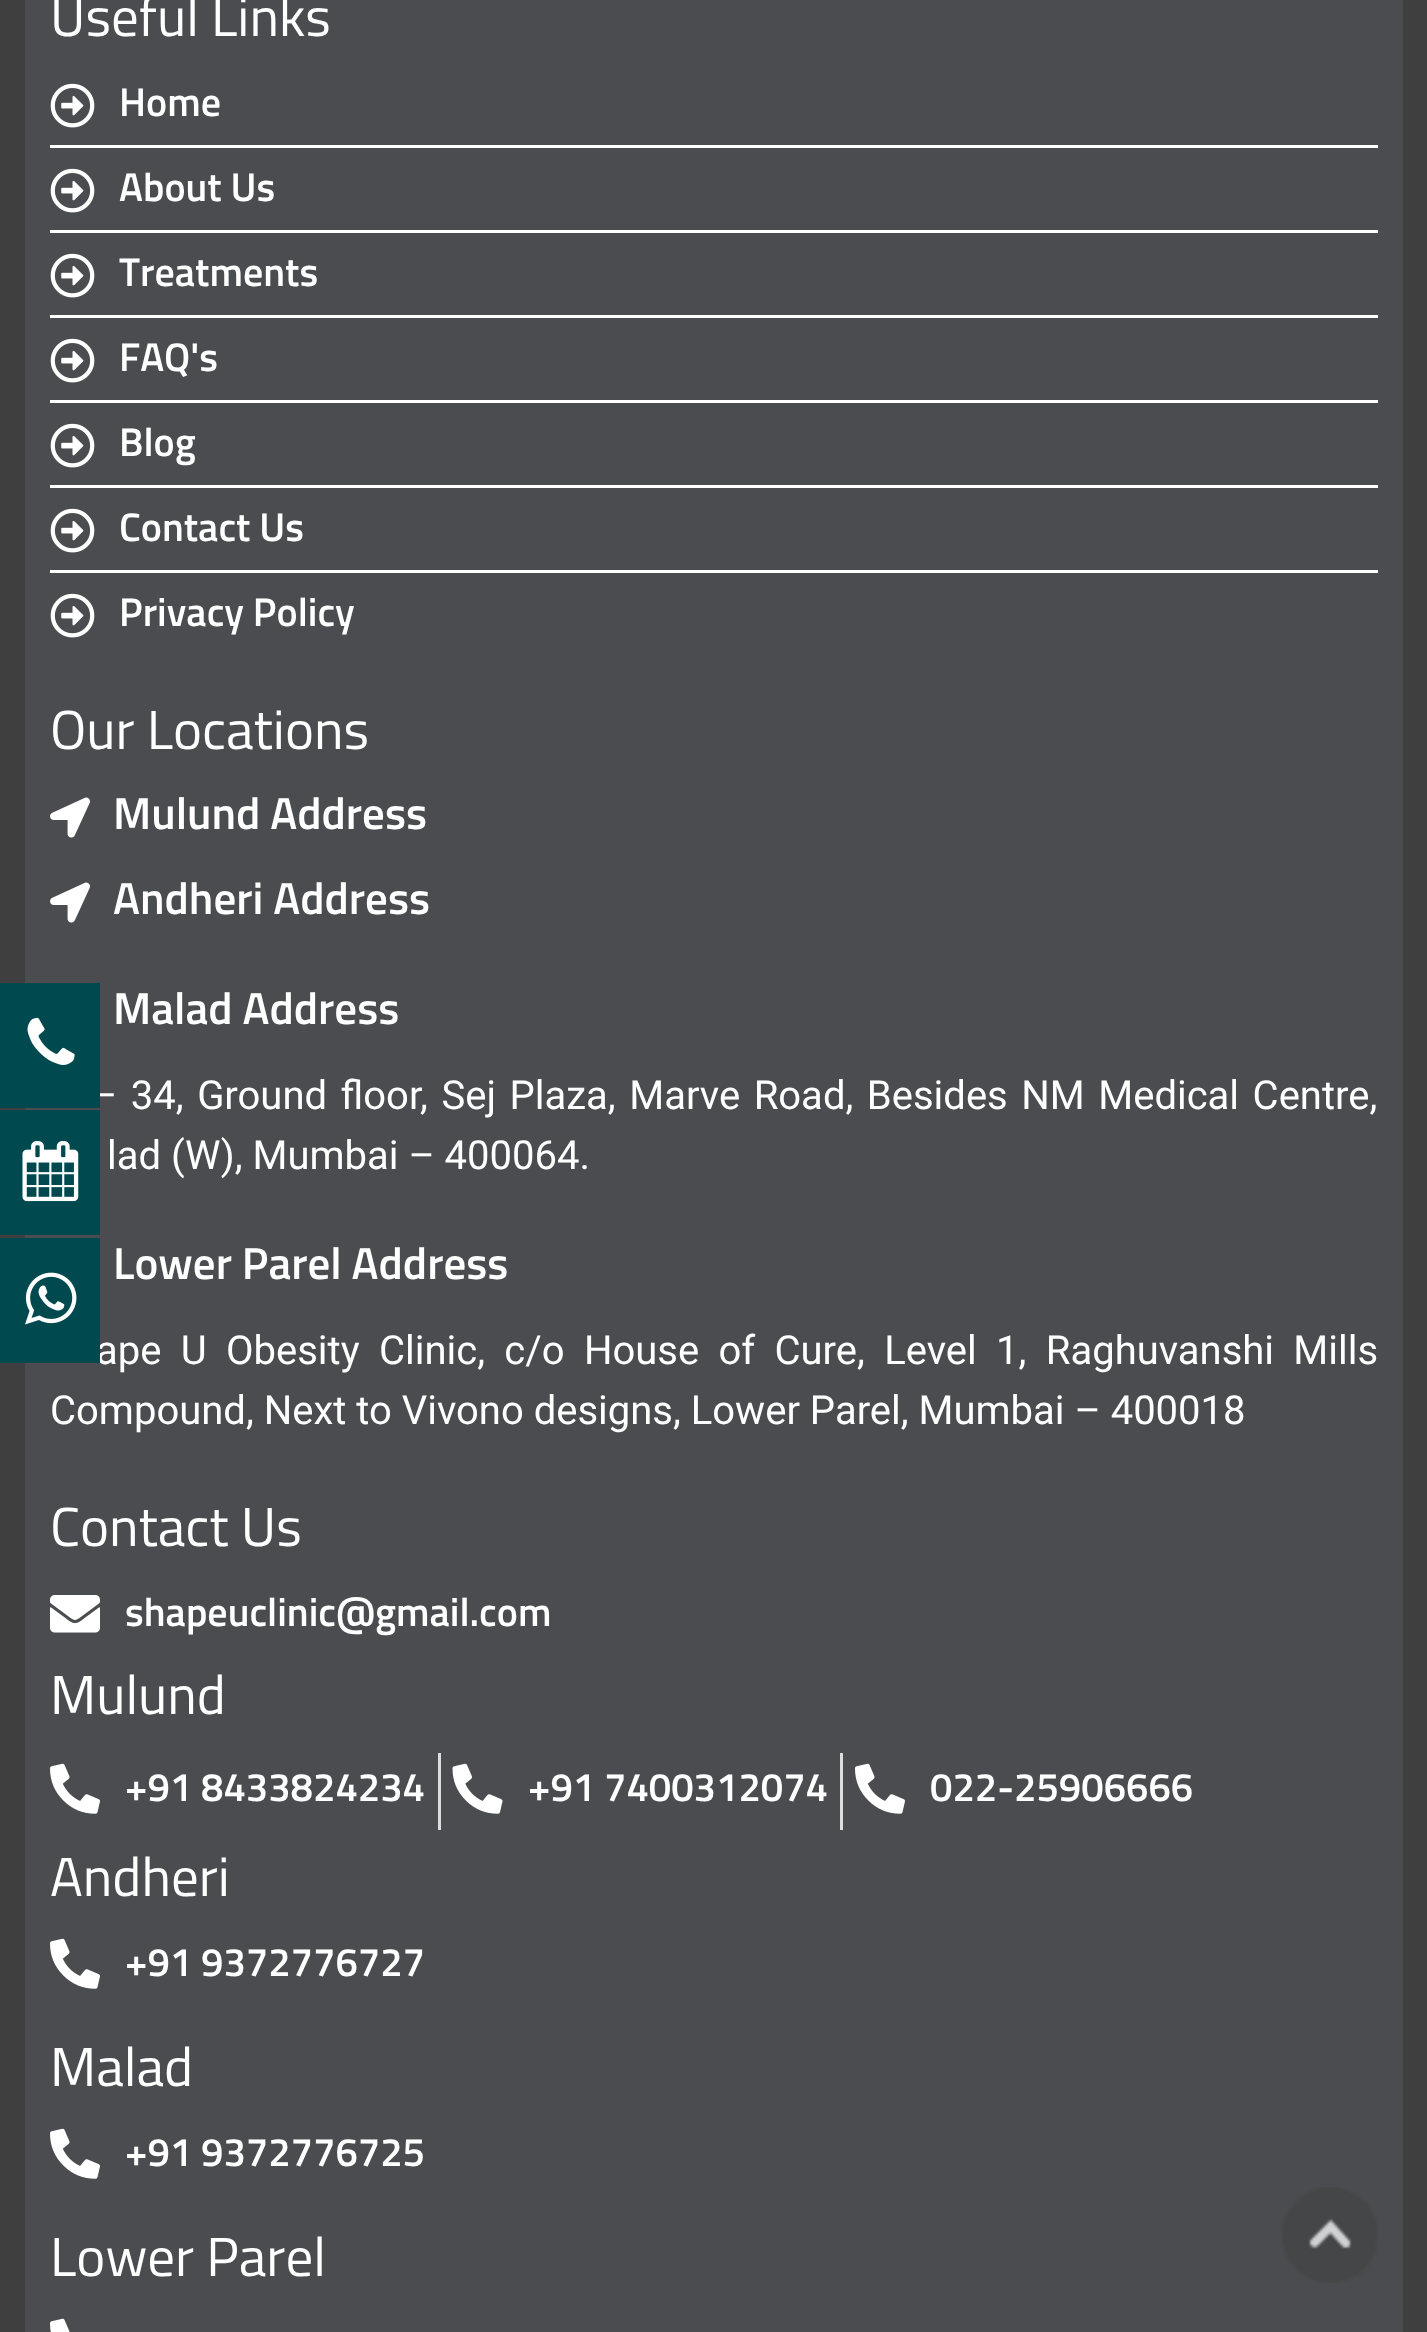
<svg xmlns="http://www.w3.org/2000/svg" width="1427" height="2332" viewBox="0 0 1427 2332">
  <style>
    .t1 { font: 40px Roboto; fill: #fff; }
    .t2 { font: 300 55px Sunflower; fill: #fff; }
    .t3 { font: 500 40px Sunflower; fill: #fff; }
    .t4 { font: 500 45px Sunflower; fill: #fff; }
  </style>
  <rect width="100%" height="100%" fill="#3f3f3f"/>
  <rect x="25" y="0" width="1378" height="2332" fill="#4a4c4f"/>
  <text x="91" y="1109" word-spacing="3.6" class="t1">– 34, Ground floor, Sej Plaza, Marve Road, Besides NM Medical Centre,</text>
  <rect x="0" y="983" width="100" height="125" fill="#00494f"/>
  <image x="27" y="1017" width="48" height="48" href="images/1.png"/>
  <rect x="0" y="1110" width="100" height="125" fill="#00494f"/>
  <image x="22" y="1141" width="57" height="61" href="images/2.png"/>
  <text x="96" y="1364" word-spacing="9.4" class="t1">ape U Obesity Clinic, c/o House of Cure, Level 1, Raghuvanshi Mills</text>
  <rect x="0" y="1238" width="100" height="125" fill="#00494f"/>
  <image x="25" y="1272" width="52" height="53" href="images/3.png"/>
  <text x="50" y="36" class="t2">Useful Links</text>
  <image x="50" y="83" width="45" height="45" href="images/4.png"/>
  <text x="119" y="116" class="t3">Home</text>
  <rect x="50" y="145" width="1328" height="3" fill="#fff"/>
  <image x="50" y="168" width="45" height="45" href="images/4.png"/>
  <text x="119" y="201" class="t3">About Us</text>
  <rect x="50" y="230" width="1328" height="3" fill="#fff"/>
  <image x="50" y="253" width="45" height="45" href="images/4.png"/>
  <text x="119" y="286" class="t3">Treatments</text>
  <rect x="50" y="315" width="1328" height="3" fill="#fff"/>
  <image x="50" y="338" width="45" height="45" href="images/4.png"/>
  <text x="119" y="371" class="t3">FAQ's</text>
  <rect x="50" y="400" width="1328" height="3" fill="#fff"/>
  <image x="50" y="423" width="45" height="45" href="images/4.png"/>
  <text x="119" y="456" class="t3">Blog</text>
  <rect x="50" y="485" width="1328" height="3" fill="#fff"/>
  <image x="50" y="508" width="45" height="45" href="images/4.png"/>
  <text x="119" y="541" class="t3">Contact Us</text>
  <rect x="50" y="570" width="1328" height="3" fill="#fff"/>
  <image x="50" y="593" width="45" height="45" href="images/4.png"/>
  <text x="119" y="626" class="t3">Privacy Policy</text>
  <text x="50" y="749" class="t2">Our Locations</text>
  <image x="50" y="797" width="41" height="41" href="images/5.png"/>
  <text x="113" y="829" class="t4">Mulund Address</text>
  <image x="50" y="882" width="41" height="41" href="images/5.png"/>
  <text x="113" y="914" class="t4">Andheri Address</text>
  <text x="113" y="1024" class="t4">Malad Address</text>
  <text x="107" y="1169" class="t1">lad (W), Mumbai – 400064.</text>
  <text x="113" y="1279" class="t4">Lower Parel Address</text>
  <text x="50" y="1424" class="t1">Compound, Next to Vivono designs, Lower Parel, Mumbai – 400018</text>
  <text x="50" y="1546" class="t2">Contact Us</text>
  <image x="50" y="1595" width="50" height="38" href="images/6.png"/>
  <text x="125" y="1626" class="t3">shapeuclinic@gmail.com</text>
  <text x="50" y="1714" class="t2">Mulund</text>
  <image x="50" y="1763" width="50" height="51" href="images/7.png"/>
  <text x="125" y="1801" class="t3">+91 8433824234</text>
  <rect x="438" y="1753" width="3" height="77" fill="#ddd"/>
  <image x="452" y="1763" width="51" height="51" href="images/8.png"/>
  <text x="528" y="1801" class="t3">+91 7400312074</text>
  <rect x="840" y="1753" width="3" height="77" fill="#ddd"/>
  <image x="855" y="1763" width="50" height="51" href="images/7.png"/>
  <text x="930" y="1801" class="t3">022-25906666</text>
  <text x="50" y="1896" class="t2">Andheri</text>
  <image x="50" y="1938" width="50" height="51" href="images/7.png"/>
  <text x="125" y="1976" class="t3">+91 9372776727</text>
  <text x="50" y="2086" class="t2">Malad</text>
  <image x="50" y="2128" width="50" height="51" href="images/7.png"/>
  <text x="125" y="2166" class="t3">+91 9372776725</text>
  <text x="50" y="2276" class="t2">Lower Parel</text>
  <image x="50" y="2318" width="20" height="14" href="images/9.png"/>
  <image x="1282" y="2187" width="96" height="96" href="images/10.png"/>
</svg>
